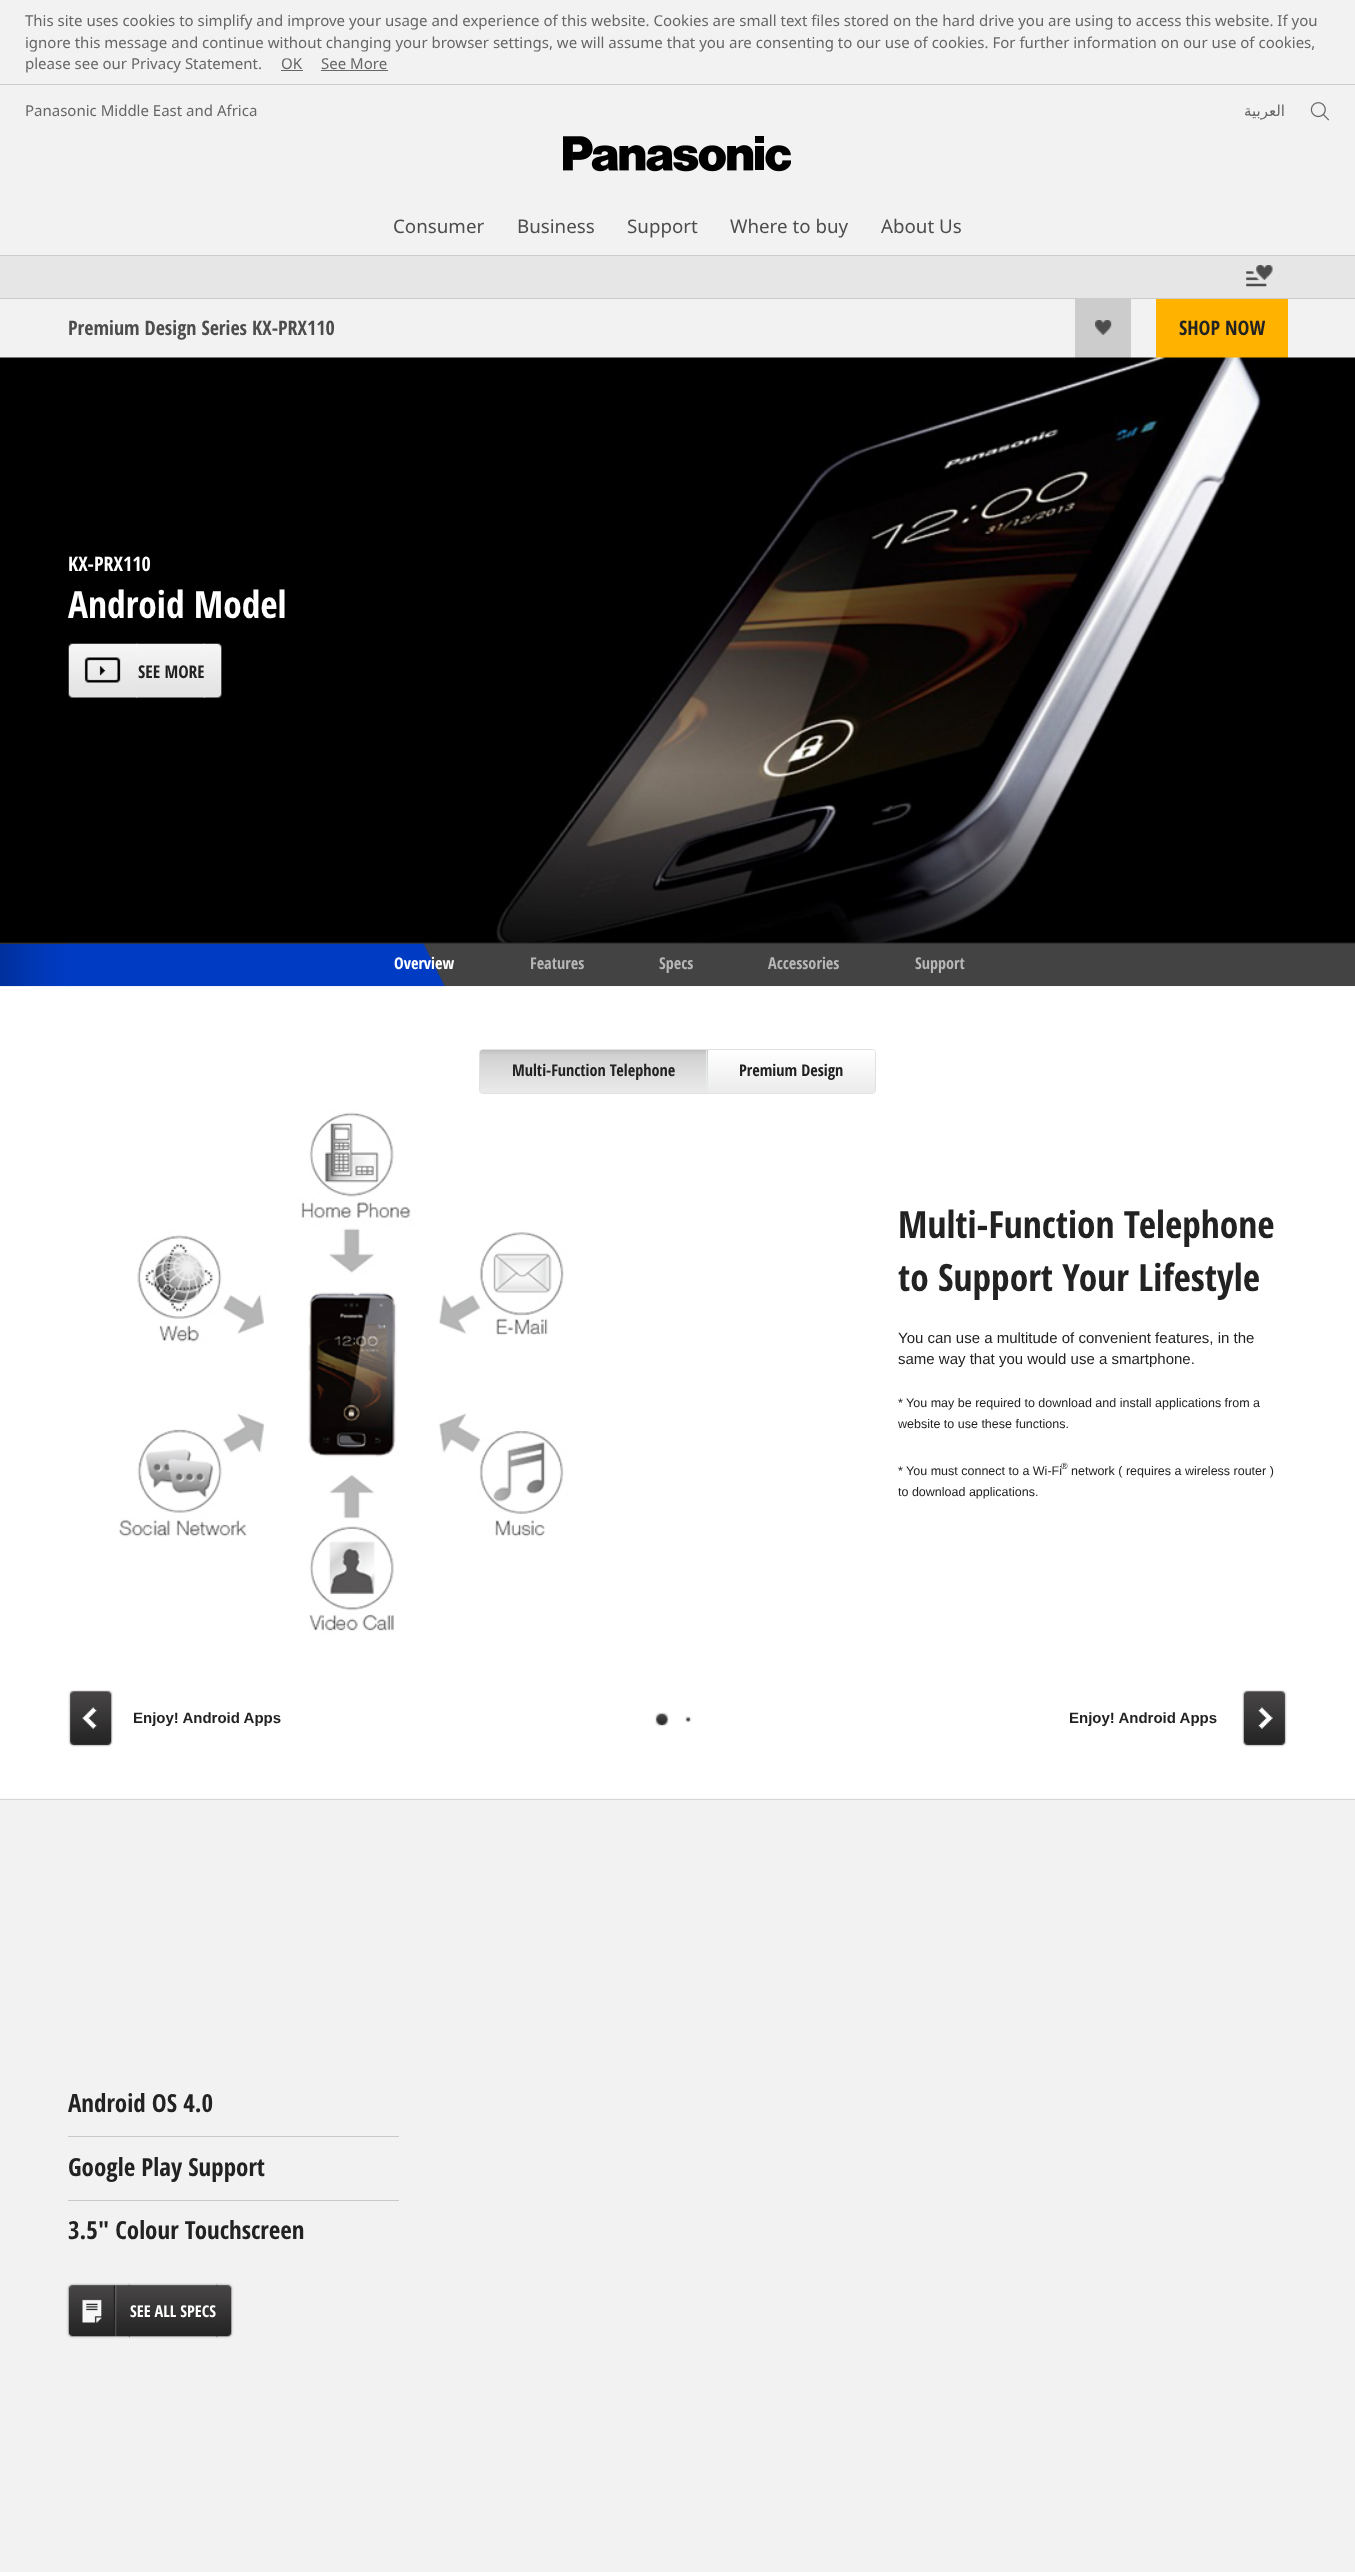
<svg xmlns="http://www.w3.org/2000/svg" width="1355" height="2572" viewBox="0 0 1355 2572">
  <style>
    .t1 { font: 15px Noto Sans; fill: #666; }
    .t2 { font: 15px DejaVu Sans; direction: rtl; fill: #666; }
    .t3 { font: 18.75px Noto Sans; fill: #4d4d4d; }
    .t4 { font: bold 20px Open Sans Condensed; fill: #4d4d4d; }
    .t5 { font: bold 20px Open Sans Condensed; fill: #222; }
    .t6 { font: bold 20px Open Sans Condensed; fill: #fff; }
    .t7 { font: bold 37.5px Open Sans Condensed; fill: #fff; }
    .t8 { font: bold 17.5px Open Sans Condensed; fill: #222; }
    .t9 { font: bold 16.25px Open Sans Condensed; fill: #fff; }
    .t10 { font: bold 16.25px Open Sans Condensed; fill: #b6b6b6; }
    .t11 { font: bold 16.25px Open Sans Condensed; fill: #222; }
    .t12 { font: bold 37.5px Open Sans Condensed; fill: #222; }
    .t13 { font: 15px Liberation Sans; fill: #222; }
    .t14 { font: 12.5px Liberation Sans; fill: #222; }
    .t15 { font: 9px Liberation Sans; fill: #222; }
    .t16 { font: bold 15px Liberation Sans; fill: #222; }
    .t17 { font: bold 25px Open Sans Condensed; fill: #222; }
  </style>
  <defs>
    <linearGradient id="g1" gradientUnits="userSpaceOnUse" x1="593" y1="1050" x2="593" y2="1093"><stop offset="0" stop-color="#bfbfbf"/><stop offset="0.11" stop-color="#d1d1d1"/><stop offset="0.93" stop-color="#e9e9e9"/></linearGradient>
    <linearGradient id="g2" gradientUnits="userSpaceOnUse" x1="791" y1="1050" x2="791" y2="1093"><stop offset="0" stop-color="#fff"/><stop offset="1" stop-color="#ebebeb"/></linearGradient>
  </defs>
  <rect width="100%" height="100%" fill="#f2f2f2"/>
  <rect x="0" y="84" width="1355" height="1" fill="#ccc"/>
  <text x="25" y="26" class="t1">This site uses cookies to simplify and improve your usage and experience of this website. Cookies are small text files stored on the hard drive you are using to access this website. If you</text>
  <text x="25" y="48" class="t1">ignore this message and continue without changing your browser settings, we will assume that you are consenting to our use of cookies. For further information on our use of cookies,</text>
  <text x="25" y="69" class="t1">please see our Privacy Statement.</text>
  <text x="281" y="69" class="t1">OK</text>
  <rect x="281" y="70" width="22" height="1" fill="#666"/>
  <text x="321" y="69" class="t1">See More</text>
  <rect x="321" y="70" width="67" height="1" fill="#666"/>
  <text x="25" y="116" class="t1">Panasonic Middle East and Africa</text>
  <text x="1285" y="116" class="t2">العربية</text>
  <image x="1310" y="102" width="19" height="19" href="images/1.png"/>
  <image x="563" y="136" width="228" height="36" href="images/2.png"/>
  <text x="393" y="233" class="t3">Consumer</text>
  <text x="517" y="233" class="t3">Business</text>
  <text x="627" y="233" class="t3">Support</text>
  <text x="730" y="233" class="t3">Where to buy</text>
  <text x="881" y="233" class="t3">About Us</text>
  <rect x="0" y="256" width="1355" height="42" fill="#e6e6e6"/>
  <rect x="0" y="255" width="1355" height="1" fill="#ccc"/>
  <image x="1246" y="271" width="21" height="16" href="images/4.png"/>
  <image x="1256" y="265" width="17" height="15" href="images/3.png"/>
  <rect x="0" y="298" width="1355" height="1" fill="#ccc"/>
  <text x="68" y="335" class="t4">Premium Design Series KX-PRX110</text>
  <rect x="1075" y="299" width="56" height="59" fill="#ccc"/>
  <image x="1095" y="320" width="17" height="15" href="images/5.png"/>
  <rect x="1156" y="299" width="132" height="59" fill="#ffb300"/>
  <text x="1179" y="335" class="t5">SHOP NOW</text>
  <rect x="0" y="942" width="1355" height="1" fill="#222"/>
  <image x="0" y="357" width="1355" height="586" href="images/6.png"/>
  <text x="68" y="571" class="t6">KX-PRX110</text>
  <text x="68" y="618" class="t7">Android Model</text>
  <image x="136" y="643" width="69" height="55" href="images/7.png"/>
  <image x="68" y="643" width="70" height="55" href="images/8.png"/>
  <text x="138" y="678" class="t8">SEE MORE</text>
  <image x="203" y="643" width="19" height="55" href="images/9.png"/>
  <rect x="422" y="944" width="933" height="42" fill="#434343"/>
  <image x="0" y="944" width="71" height="43" href="images/10.png"/>
  <rect x="0" y="943" width="1355" height="1" fill="#333"/>
  <image x="67" y="943" width="378" height="44" href="images/11.png"/>
  <text x="394" y="969" class="t9">Overview</text>
  <text x="530" y="969" class="t10">Features</text>
  <text x="659" y="969" class="t10">Specs</text>
  <text x="768" y="969" class="t10">Accessories</text>
  <text x="915" y="969" class="t10">Support</text>
  <rect x="0" y="1799" width="1355" height="1" fill="#d6d6d6"/>
  <image x="0" y="986" width="1355" height="1" href="images/12.png"/>
  <image x="0" y="986" width="1355" height="813" href="images/13.png"/>
  <rect x="479.5" y="1049.5" width="396" height="44" rx="3.5" fill="none" stroke="#e1e1e1"/>
  <path d="M482.5 1050H708V1093H482.5C481 1093 480 1092 480 1090.5V1052.5C480 1051 481 1050 482.5 1050Z" fill="url(#g1)"/>
  <rect x="706" y="1050" width="1" height="43" fill="#e5ecec"/>
  <text x="512" y="1076" class="t11">Multi-Function Telephone</text>
  <path d="M708 1050H872.5C874 1050 875 1051 875 1052.5V1090.5C875 1092 874 1093 872.5 1093H708Z" fill="url(#g2)"/>
  <text x="739" y="1076" class="t11">Premium Design</text>
  <text x="898" y="1238" class="t12">Multi-Function Telephone</text>
  <text x="898" y="1291" class="t12">to Support Your Lifestyle</text>
  <text x="898" y="1343" class="t13">You can use a multitude of convenient features, in the</text>
  <text x="898" y="1364" class="t13">same way that you would use a smartphone.</text>
  <text x="898" y="1407" class="t14">* You may be required to download and install applications from a</text>
  <text x="898" y="1428" class="t14">website to use these functions.</text>
  <text x="898" y="1475" class="t14">* You must connect to a Wi-Fi</text>
  <text x="1061" y="1469" class="t15">®</text>
  <text x="1071" y="1475" class="t14">network ( requires a wireless router )</text>
  <text x="898" y="1496" class="t14">to download applications.</text>
  <image x="68" y="1690" width="45" height="57" href="images/14.png"/>
  <text x="133" y="1723" class="t16">Enjoy! Android Apps</text>
  <image x="655" y="1712" width="14" height="14" href="images/15.png"/>
  <image x="685" y="1716" width="7" height="7" href="images/16.png"/>
  <text x="1069" y="1723" class="t16">Enjoy! Android Apps</text>
  <image x="1242" y="1690" width="45" height="57" href="images/17.png"/>
  <text x="68" y="2112" class="t17">Android OS 4.0</text>
  <rect x="68" y="2136" width="331" height="1" fill="#c9c9c9"/>
  <text x="68" y="2176" class="t17">Google Play Support</text>
  <rect x="68" y="2200" width="331" height="1" fill="#c9c9c9"/>
  <text x="68" y="2239" class="t17">3.5" Colour Touchscreen</text>
  <image x="128" y="2283" width="90" height="56" href="images/18.png"/>
  <image x="66" y="2283" width="64" height="56" href="images/19.png"/>
  <text x="130" y="2317" class="t9">SEE ALL SPECS</text>
  <image x="216" y="2283" width="18" height="56" href="images/20.png"/>
</svg>
